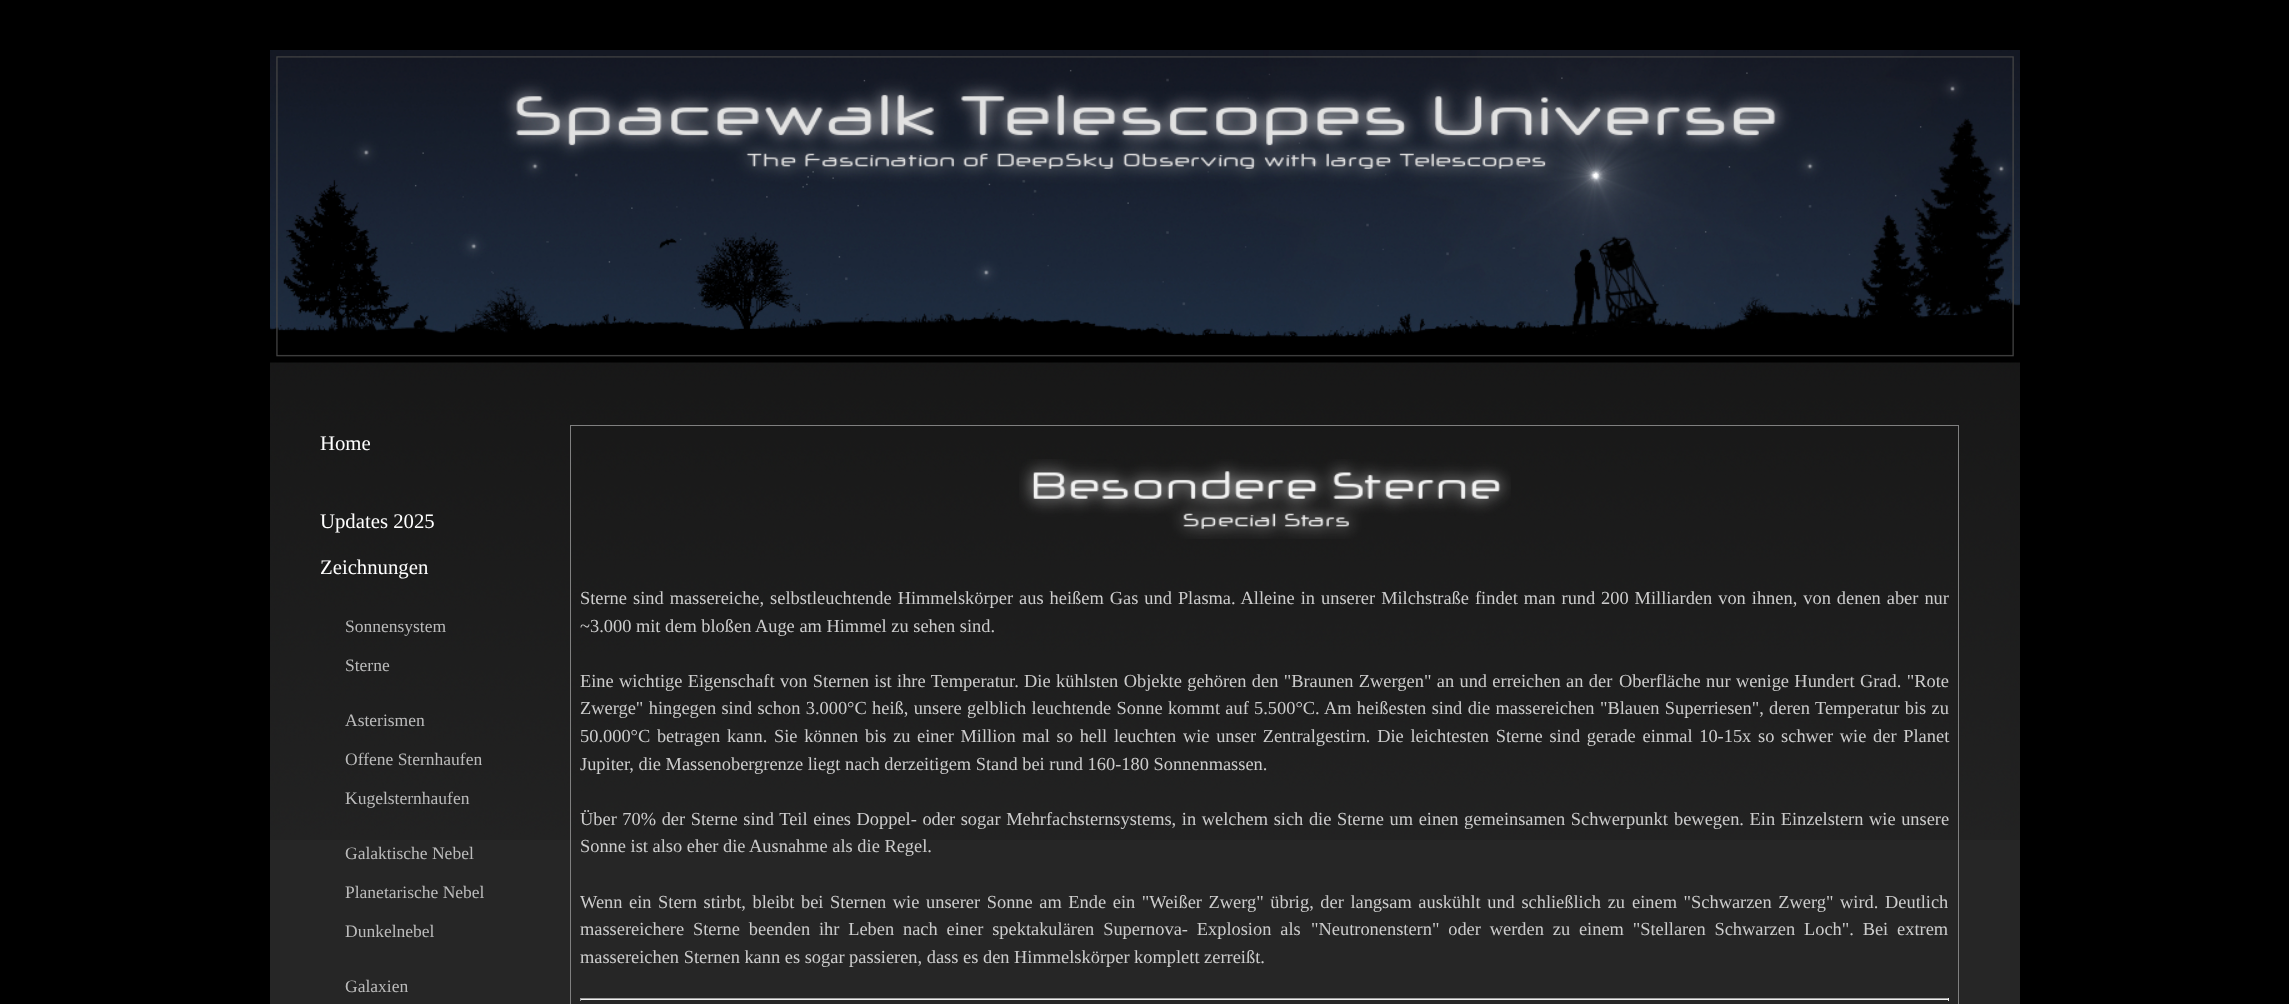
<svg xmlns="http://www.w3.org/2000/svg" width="2289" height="1004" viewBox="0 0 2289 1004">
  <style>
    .t1 { font: 20.75px Liberation Serif; fill: #fff; }
    .t2 { font: 17.5px Liberation Serif; fill: #bbb; }
    .t3 { font: 18.4px Liberation Serif; fill: #ccc; }
  </style>
  <rect width="100%" height="100%" fill="#000"/>
  <rect x="270" y="840" width="1750" height="164" fill="#262626"/>
  <image x="270" y="362" width="1750" height="478" href="images/1.png"/>
  <image x="270" y="50" width="1750" height="313" href="images/2.png"/>
  <text x="320" y="450" class="t1">Home</text>
  <text x="320" y="528" class="t1">Updates 2025</text>
  <text x="320" y="574" class="t1">Zeichnungen</text>
  <text x="345" y="632" class="t2">Sonnensystem</text>
  <text x="345" y="671" class="t2">Sterne</text>
  <text x="345" y="726" class="t2">Asterismen</text>
  <text x="345" y="765" class="t2">Offene Sternhaufen</text>
  <text x="345" y="804" class="t2">Kugelsternhaufen</text>
  <text x="345" y="859" class="t2">Galaktische Nebel</text>
  <text x="345" y="898" class="t2">Planetarische Nebel</text>
  <text x="345" y="937" class="t2">Dunkelnebel</text>
  <text x="345" y="992" class="t2">Galaxien</text>
  <rect x="570.5" y="425.5" width="1388" height="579" fill="none" stroke="#808080"/>
  <image x="1019" y="459" width="492" height="80" href="images/3.png"/>
  <text x="580" y="604" word-spacing="1.4" class="t3">Sterne sind massereiche, selbstleuchtende Himmelskörper aus heißem Gas und Plasma. Alleine in unserer Milchstraße findet man rund</text>
  <text x="1601" y="604" word-spacing="1.4" class="t3">200 Milliarden von ihnen, von denen aber nur</text>
  <text x="580" y="632" class="t3">~3.000 mit dem bloßen Auge am Himmel zu sehen sind.</text>
  <text x="580" y="687" word-spacing="0.75" class="t3">Eine wichtige Eigenschaft von Sternen ist ihre Temperatur. Die kühlsten Objekte gehören den "Braunen Zwergen" an und erreichen an der</text>
  <text x="1619" y="687" word-spacing="0.75" class="t3">Oberfläche nur wenige Hundert Grad. "Rote</text>
  <text x="580" y="714" word-spacing="0.75" class="t3">Zwerge" hingegen sind schon 3.000°C heiß, unsere gelblich leuchtende Sonne kommt auf</text>
  <text x="1254" y="714" word-spacing="0.75" class="t3">5.500°C. Am heißesten sind die massereichen "Blauen Superriesen", deren Temperatur bis zu</text>
  <text x="580" y="742" word-spacing="2.1" class="t3">50.000°C betragen kann. Sie können bis zu</text>
  <text x="917" y="742" word-spacing="2.1" class="t3">einer Million mal so hell leuchten wie unser Zentralgestirn. Die leichtesten Sterne sind gerade einmal 10-15x so schwer wie der Planet</text>
  <text x="580" y="770" class="t3">Jupiter, die Massenobergrenze liegt nach derzeitigem Stand bei rund 160-180 Sonnenmassen.</text>
  <text x="580" y="825" word-spacing="1" class="t3">Über 70% der Sterne sind Teil eines Doppel- oder sogar Mehrfachsternsystems, in welchem sich die Sterne um einen gemeinsamen Schwerpunkt</text>
  <text x="1674" y="825" word-spacing="1" class="t3">bewegen. Ein Einzelstern wie unsere</text>
  <text x="580" y="852" class="t3">Sonne ist also eher die Ausnahme als die Regel.</text>
  <text x="580" y="908" word-spacing="2" class="t3">Wenn ein Stern stirbt, bleibt bei Sternen wie unserer Sonne am Ende ein "Weißer Zwerg" übrig, der langsam auskühlt und schließlich zu</text>
  <text x="1632" y="908" word-spacing="2" class="t3">einem "Schwarzen Zwerg" wird. Deutlich</text>
  <text x="580" y="935" word-spacing="4.25" class="t3">massereichere Sterne beenden ihr Leben nach einer spektakulären Supernova- Explosion als</text>
  <text x="1311" y="935" word-spacing="4.25" class="t3">"Neutronenstern" oder werden zu einem "Stellaren Schwarzen Loch". Bei extrem</text>
  <text x="580" y="963" class="t3">massereichen Sternen kann es sogar passieren, dass es den Himmelskörper komplett zerreißt.</text>
  <rect x="580" y="998" width="1369" height="1" fill="#9f9f9f"/>
  <rect x="1948" y="998" width="1" height="3" fill="#eee"/>
  <rect x="580" y="999" width="1369" height="1" fill="#eee"/>
  <rect x="580" y="998" width="1" height="3" fill="#9f9f9f"/>
</svg>
